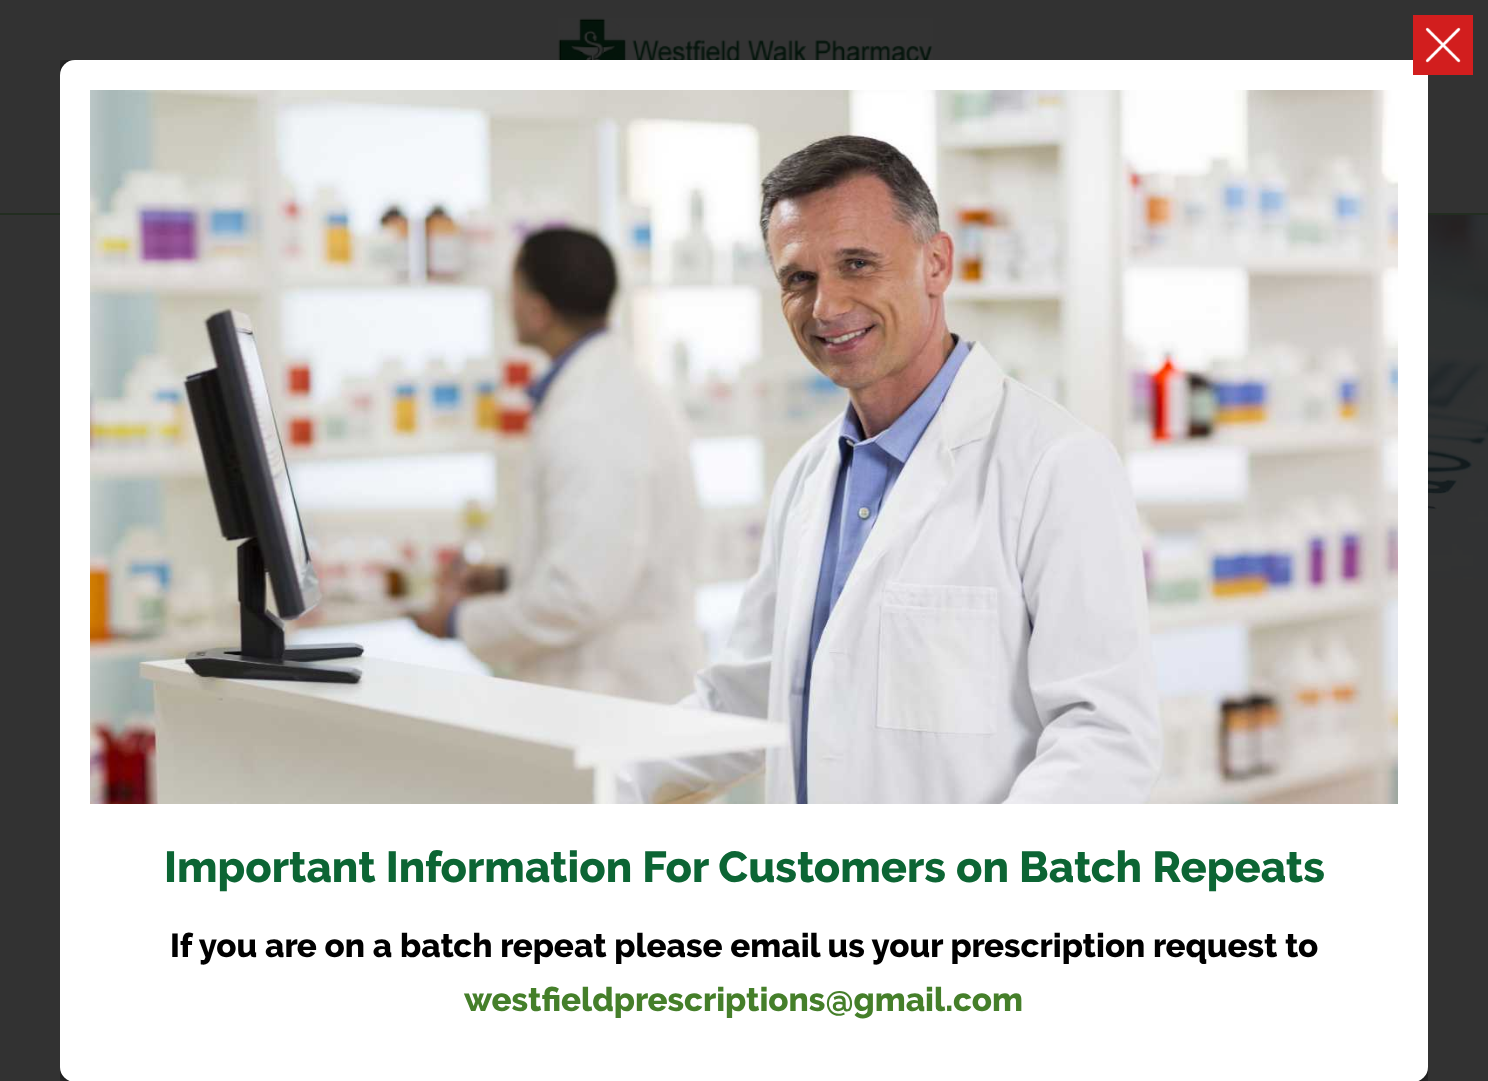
<svg xmlns="http://www.w3.org/2000/svg" width="1488" height="1081" viewBox="0 0 1488 1081">
  <style>
    .t1 { font: 800 43.35px Raleway; fill: #0c6534; }
    .t2 { font: 800 33.15px Raleway; fill: #000; }
    .t3 { font: 800 33.15px Raleway; fill: #457f2a; }
  </style>
  <defs>
    <clipPath id="clip1"><rect x="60" y="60" width="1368" height="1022"/></clipPath>
  </defs>
  <rect width="100%" height="100%" fill="#323232"/>
  <rect x="0" y="213" width="1488" height="2" fill="#222d20"/>
  <image x="558" y="18" width="375" height="42" href="images/1.png"/>
  <image x="1428" y="215" width="60" height="364" href="images/2.png"/>
  <g clip-path="url(#clip1)">
    <rect x="60" y="60" width="1368" height="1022" rx="15" fill="#000" filter="blur(7.5px)"/>
  </g>
  <rect x="60" y="60" width="1368" height="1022" rx="15" fill="#fff"/>
  <rect x="1413" y="15" width="60" height="60" fill="#d21e1e"/>
  <image x="1425" y="27" width="36" height="36" href="images/3.png"/>
  <image x="90" y="90" width="1308" height="714" href="images/4.png"/>
  <text x="164" y="882" class="t1">Important Information For Customers on Batch Repeats</text>
  <text x="170" y="957" class="t2">If you are on a batch repeat please email us your prescription request to</text>
  <text x="464" y="1011" class="t3">westfieldprescriptions@gmail.com</text>
</svg>
